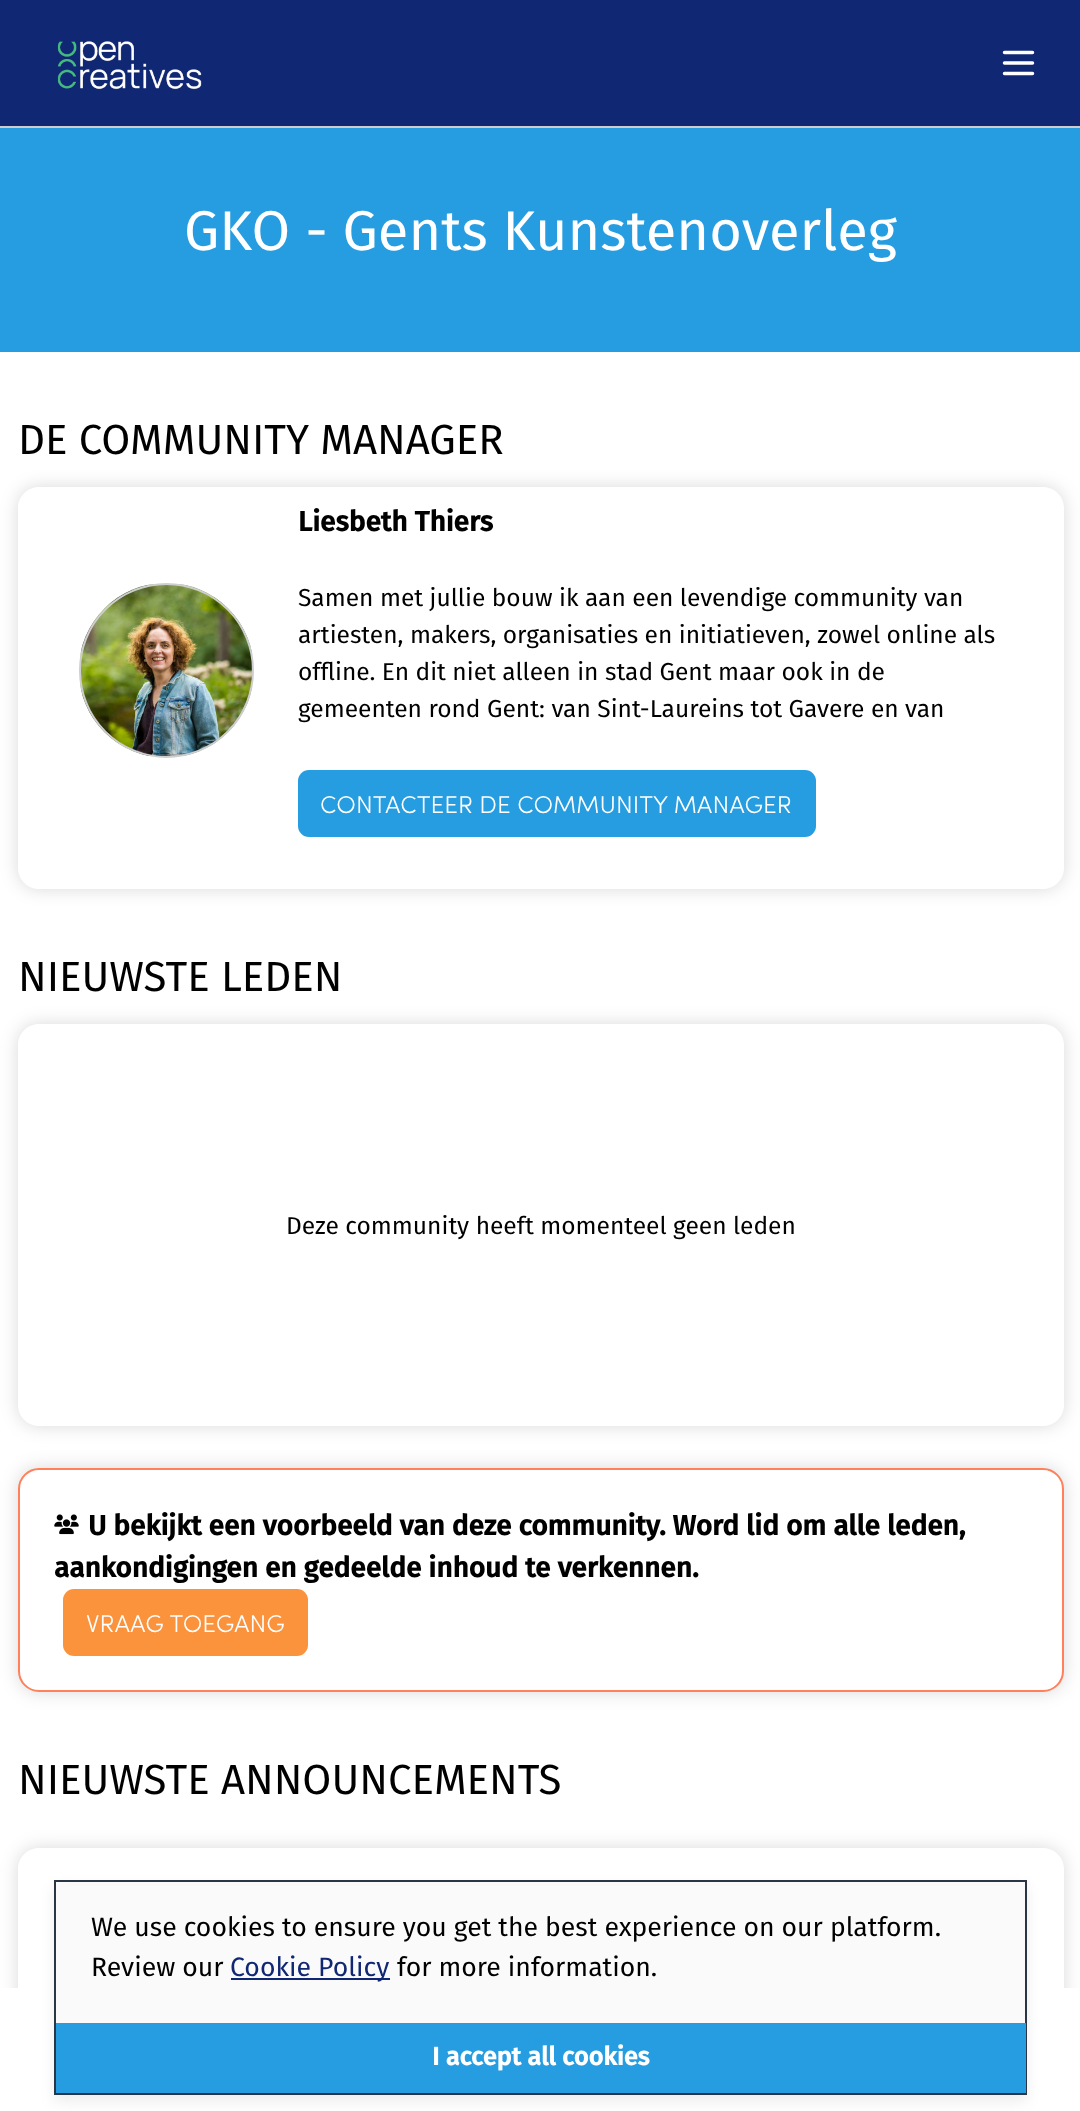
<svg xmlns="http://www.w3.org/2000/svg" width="1080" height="2111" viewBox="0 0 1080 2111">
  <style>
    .t1 { font: 56px Fira Sans; fill: #fff; }
    .t2 { font: 42px Fira Sans; fill: #000; }
    .t3 { font: bold 28px Fira Sans; fill: #000; }
    .t4 { font: 24.5px Fira Sans; fill: #000; }
    .t5 { font: 300 24.5px Sofia; fill: #fff; }
    .t6 { font: 26.6px Fira Sans; fill: #000; }
    .t7 { font: 26.6px Fira Sans; fill: #102774; }
    .t8 { font: bold 25.25px Fira Sans; fill: #fff; }
  </style>
  <defs>
    <clipPath id="clip1"><path d="M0 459H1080V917H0ZM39 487H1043C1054.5 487 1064 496.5 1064 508V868C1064 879.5 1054.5 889 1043 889H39C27.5 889 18 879.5 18 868V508C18 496.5 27.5 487 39 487Z" clip-rule="evenodd"/></clipPath>
    <clipPath id="clip2"><path d="M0 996H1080V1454H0ZM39 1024H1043C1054.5 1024 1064 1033.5 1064 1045V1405C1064 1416.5 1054.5 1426 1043 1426H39C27.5 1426 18 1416.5 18 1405V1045C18 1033.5 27.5 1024 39 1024Z" clip-rule="evenodd"/></clipPath>
    <clipPath id="clip3"><rect x="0" y="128" width="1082" height="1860"/></clipPath>
    <clipPath id="clip4"><path d="M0 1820H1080V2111H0ZM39 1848H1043C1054.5 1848 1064 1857.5 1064 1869V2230C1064 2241.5 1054.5 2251 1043 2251H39C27.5 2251 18 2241.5 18 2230V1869C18 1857.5 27.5 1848 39 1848Z" clip-rule="evenodd"/></clipPath>
  </defs>
  <rect width="100%" height="100%" fill="#fff"/>
  <rect x="0" y="0" width="1080" height="126" fill="#102774"/>
  <image x="57" y="41" width="145" height="49" href="images/1.png"/>
  <path d="M1004.5 52.5H1032.5M1004.5 63H1032.5M1004.5 73.5H1032.5" fill="none" stroke="#fff" stroke-width="3.5" stroke-linecap="round" stroke-linejoin="round"/>
  <rect x="0" y="126" width="1080" height="2" fill="#cecece"/>
  <rect x="0" y="128" width="1080" height="224" fill="#269de0"/>
  <text x="184" y="250" class="t1">GKO - Gents Kunstenoverleg</text>
  <text x="18" y="454" class="t2">DE COMMUNITY MANAGER</text>
  <g clip-path="url(#clip1)">
    <rect x="18" y="487" width="1046" height="402" rx="21" fill="#00000026" filter="blur(9px)"/>
  </g>
  <image x="80" y="584" width="172" height="172" href="images/2.png"/>
  <circle cx="166.5" cy="670.5" r="86.5" fill="none" stroke="#cecece" stroke-width="2"/>
  <text x="298" y="531" class="t3">Liesbeth Thiers</text>
  <text x="298" y="606" class="t4">Samen met jullie bouw ik aan een levendige community van</text>
  <text x="298" y="643" class="t4">artiesten, makers, organisaties en initiatieven, zowel online als</text>
  <text x="298" y="680" class="t4">offline. En dit niet alleen in stad Gent maar ook in de</text>
  <text x="298" y="717" class="t4">gemeenten rond Gent: van Sint-Laureins tot Gavere en van</text>
  <rect x="298" y="770" width="518" height="67" rx="11" fill="#269de0"/>
  <text x="320" y="813" class="t5">CONTACTEER DE COMMUNITY MANAGER</text>
  <text x="18" y="991" class="t2">NIEUWSTE LEDEN</text>
  <g clip-path="url(#clip2)">
    <rect x="18" y="1024" width="1046" height="402" rx="21" fill="#00000026" filter="blur(9px)"/>
  </g>
  <text x="286" y="1234" class="t4">Deze community heeft momenteel geen leden</text>
  <rect x="18" y="1468" width="1046" height="224" rx="21" fill="#00000026" filter="blur(9px)"/>
  <rect x="19" y="1469" width="1044" height="222" rx="20" fill="#fff" stroke="#ff805a" stroke-width="2"/>
  <image x="54" y="1514" width="25" height="21" href="images/3.png"/>
  <text x="88" y="1535" class="t3">U bekijkt een voorbeeld van deze community. Word lid om alle leden,</text>
  <text x="54" y="1577" class="t3">aankondigingen en gedeelde inhoud te verkennen.</text>
  <rect x="63" y="1589" width="245" height="67" rx="11" fill="#fb923c"/>
  <text x="86" y="1632" class="t5">VRAAG TOEGANG</text>
  <text x="18" y="1794" class="t2">NIEUWSTE ANNOUNCEMENTS</text>
  <g clip-path="url(#clip3)">
    <g clip-path="url(#clip4)">
      <rect x="18" y="1848" width="1046" height="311" rx="21" fill="#00000026" filter="blur(9px)"/>
    </g>
  </g>
  <rect x="54" y="1887" width="973" height="215" fill="#c6c6c64d" filter="blur(7px)"/>
  <rect x="56" y="1886" width="969" height="137" fill="#fafafa"/>
  <rect x="55" y="1881" width="971" height="213" fill="none" stroke="#2a3646" stroke-width="2"/>
  <text x="91" y="1936" class="t6">We use cookies to ensure you get the best experience on our platform.</text>
  <text x="91" y="1976" class="t6">Review our</text>
  <rect x="231" y="1978" width="159" height="2" fill="#102774"/>
  <text x="230" y="1976" class="t7">Cookie Policy</text>
  <text x="397" y="1976" class="t6">for more information.</text>
  <rect x="56" y="2023" width="970" height="70" fill="#269de0"/>
  <text x="432" y="2065" class="t8">I accept all cookies</text>
</svg>
